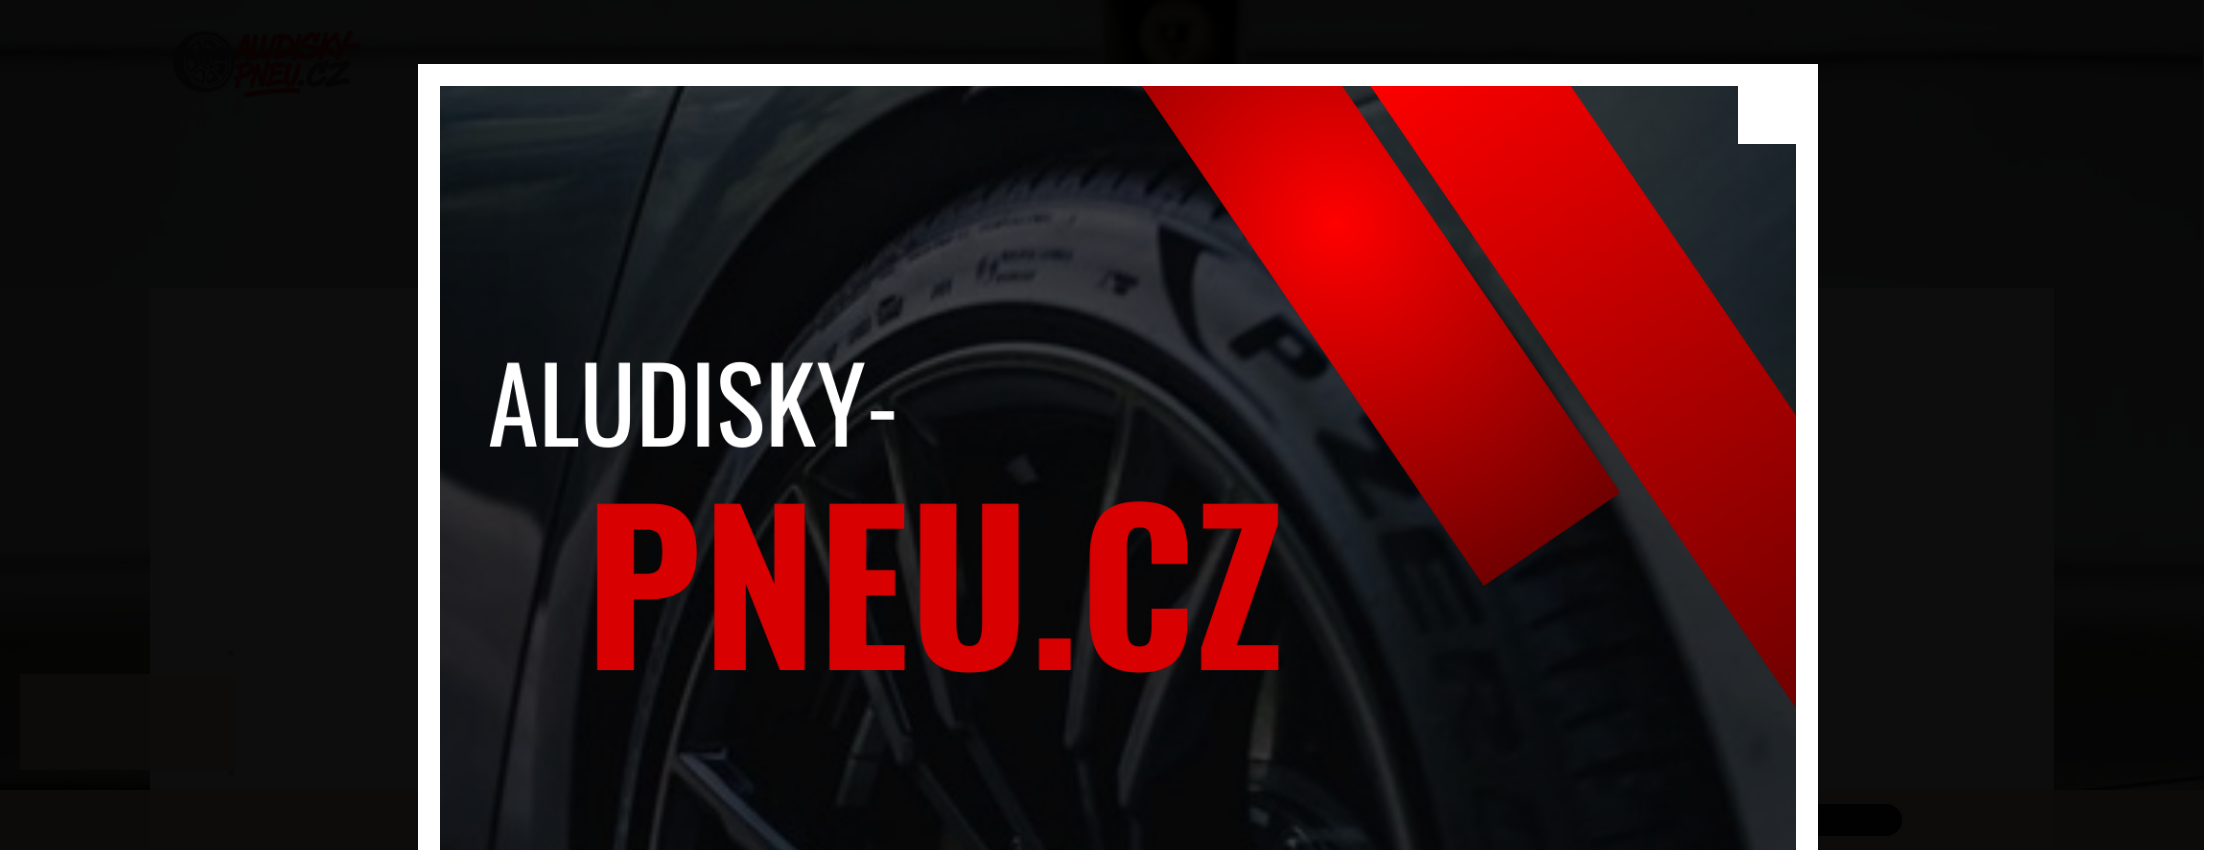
<svg xmlns="http://www.w3.org/2000/svg" width="2233" height="850" viewBox="0 0 2233 850">
  <rect width="100%" height="100%" fill="#fff"/>
  <image x="0" y="288" width="2204" height="562" href="images/1.png"/>
  <image x="0" y="0" width="2204" height="288" href="images/2.png"/>
  <image x="173" y="30" width="188" height="68" href="images/3.png"/>
  <rect x="150" y="288" width="1904" height="562" fill="#0d0d0d"/>
  <rect x="228" y="710" width="6" height="6" fill="#0a0a0a"/>
  <rect x="20" y="674" width="214" height="96" fill="#0d0c0be6"/>
  <rect x="228" y="650" width="6" height="6" fill="#0a0a0a"/>
  <rect x="228" y="770" width="6" height="6" fill="#0a0a0a"/>
  <rect x="0" y="790" width="2204" height="60" fill="#0d0c0be6"/>
  <rect x="1757" y="803" width="146" height="34" rx="17" fill="#010101" stroke="#0c0c0c" stroke-width="2"/>
  <rect x="418" y="64" width="1400" height="786" fill="#fff"/>
  <image x="440" y="86" width="1356" height="764" href="images/4.png"/>
  <rect x="1738" y="86" width="58" height="58" fill="#fff"/>
</svg>
